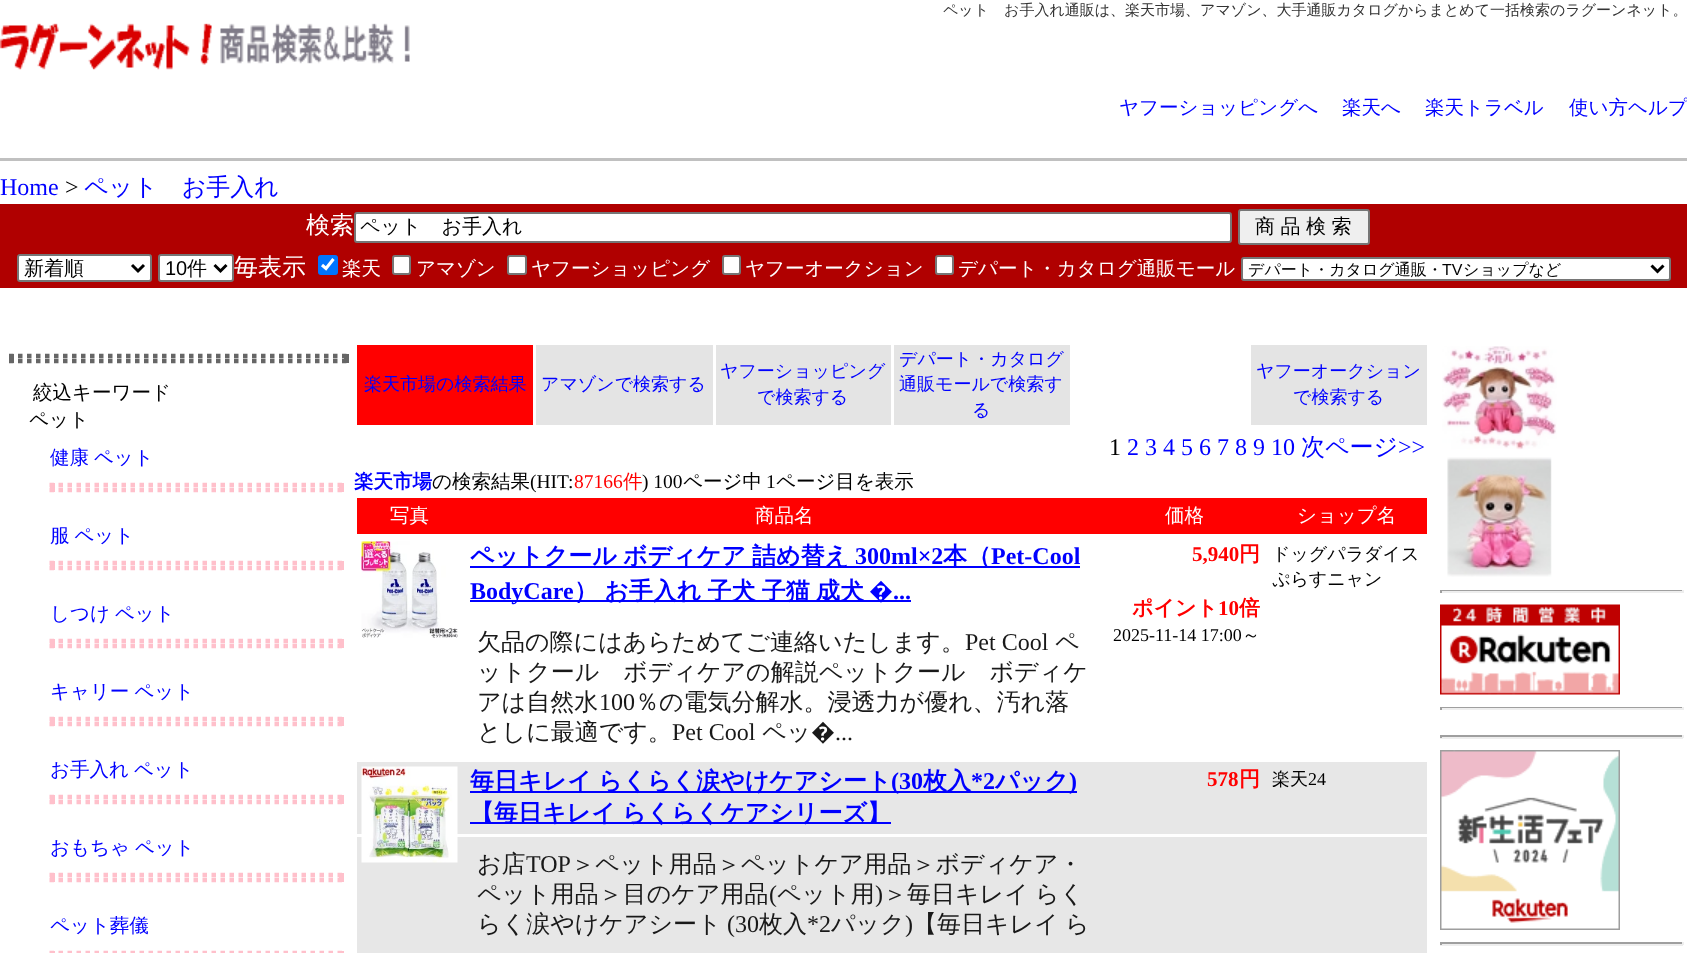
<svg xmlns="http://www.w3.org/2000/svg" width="1687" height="953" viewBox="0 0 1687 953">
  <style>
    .t1 { font: 500 15px WenQuanYi Zen Hei; fill: #333; }
    .t2 { font: 500 19.5px WenQuanYi Zen Hei; fill: #00f; }
    .t3 { font: 24px Liberation Serif; fill: #00f; }
    .t4 { font: 24px Liberation Serif; fill: #000; }
    .t5 { font: 500 24px WenQuanYi Zen Hei; fill: #00f; }
    .t6 { font: 500 24px WenQuanYi Zen Hei; fill: #fff; }
    .t7 { font: 500 20px WenQuanYi Zen Hei; fill: #000; }
    .t8 { font: 20px Liberation Sans; fill: #000; }
    .t9 { font: 500 19.5px WenQuanYi Zen Hei; fill: #fff; }
    .t10 { font: 500 16px WenQuanYi Zen Hei; fill: #000; }
    .t11 { font: 16px Liberation Sans; fill: #000; }
    .t12 { font: 500 19.5px WenQuanYi Zen Hei; fill: #000; }
    .t13 { font: 500 18px WenQuanYi Zen Hei; fill: #00f; }
    .t14 { font: bold 19.5px WenQuanYi Zen Hei; fill: #00f; }
    .t15 { font: 19.5px Liberation Serif; fill: #000; }
    .t16 { font: 19.5px Liberation Serif; fill: #f00; }
    .t17 { font: 500 19.5px WenQuanYi Zen Hei; fill: #f00; }
    .t18 { font: bold 24px WenQuanYi Zen Hei; fill: #00f; }
    .t19 { font: bold 24px Liberation Serif; fill: #00f; }
    .t20 { font: 600 24px Noto Sans; fill: #00f; }
    .t21 { font: bold 21px Liberation Serif; fill: #f00; }
    .t22 { font: bold 21px WenQuanYi Zen Hei; fill: #f00; }
    .t23 { font: 18px Liberation Serif; fill: #000; }
    .t24 { font: 500 18px WenQuanYi Zen Hei; fill: #000; }
    .t25 { font: 500 24px WenQuanYi Zen Hei; fill: #191919; }
    .t26 { font: 24px Liberation Serif; fill: #191919; }
    .t27 { font: 24px Noto Sans; fill: #191919; }
  </style>
  <rect width="100%" height="100%" fill="#fff"/>
  <text x="943" y="15" class="t1">ペット　お手入れ通販は、楽天市場、アマゾン、大手通販カタログからまとめて一括検索のラグーンネット。</text>
  <image x="0" y="23" width="410" height="47" href="images/1.png"/>
  <text x="1119" y="114" class="t2">ヤフーショッピングへ</text>
  <text x="1342" y="114" class="t2">楽天へ</text>
  <text x="1425" y="114" class="t2">楽天トラベル</text>
  <text x="1569" y="114" class="t2">使い方ヘルプ</text>
  <rect x="0" y="158" width="1687" height="3" fill="#c0c0c0"/>
  <text x="0" y="195" class="t3">Home</text>
  <text x="65" y="195" class="t4">&gt;</text>
  <text x="84" y="195" class="t5">ペット　お手入れ</text>
  <rect x="0" y="204" width="1687" height="84" fill="#b00000"/>
  <text x="306" y="233" class="t6">検索</text>
  <rect x="355" y="213" width="876" height="29" rx="2" fill="#fff" stroke="#767676" stroke-width="2"/>
  <text x="360" y="233" class="t7">ペット　お手入れ</text>
  <rect x="1239" y="210" width="130" height="34" rx="2" fill="#efefef" stroke="#767676" stroke-width="2"/>
  <text x="1255" y="233" word-spacing="-0.5" class="t7">商 品 検 索</text>
  <rect x="18" y="255" width="133" height="26" rx="2" fill="#fff" stroke="#767676" stroke-width="2"/>
  <path d="M132 265L138 271L144 265" fill="none" stroke="#000" stroke-width="3"/>
  <text x="24" y="275" class="t7">新着順</text>
  <rect x="159" y="255" width="74" height="26" rx="2" fill="#fff" stroke="#767676" stroke-width="2"/>
  <path d="M214.5 265L220.5 271L226.5 265" fill="none" stroke="#000" stroke-width="3"/>
  <text x="165" y="275" class="t8">10</text>
  <text x="187" y="275" class="t7">件</text>
  <text x="234" y="275" class="t6">毎表示</text>
  <rect x="318" y="255" width="20" height="20" rx="3" fill="#0075ff"/>
  <path d="M322 265L326 268.5L333.5 259" fill="none" stroke="#fff" stroke-width="3.1"/>
  <text x="342" y="275" class="t9">楽天</text>
  <rect x="393" y="256" width="17" height="18" rx="2" fill="#fff" stroke="#767676" stroke-width="2"/>
  <text x="416" y="275" class="t9">アマゾン</text>
  <rect x="508" y="256" width="18" height="18" rx="2" fill="#fff" stroke="#767676" stroke-width="2"/>
  <text x="531" y="275" class="t9">ヤフーショッピング</text>
  <rect x="723" y="256" width="17" height="18" rx="2" fill="#fff" stroke="#767676" stroke-width="2"/>
  <text x="745" y="275" class="t9">ヤフーオークション</text>
  <rect x="936" y="256" width="17" height="18" rx="2" fill="#fff" stroke="#767676" stroke-width="2"/>
  <text x="958" y="275" class="t9">デパート・カタログ通販モール</text>
  <rect x="1242" y="258" width="428" height="22" rx="2" fill="#fff" stroke="#767676" stroke-width="2"/>
  <path d="M1651.5 265.5L1657.5 271.5L1663.5 265.5" fill="none" stroke="#000" stroke-width="3"/>
  <text x="1248" y="275" class="t10">デパート・カタログ通販・</text>
  <text x="1442" y="275" class="t11">TV</text>
  <text x="1463" y="275" class="t10">ショップなど</text>
  <path d="M9 356H348" fill="none" stroke="#666" stroke-width="4.5" stroke-dasharray="4.5 4.5"/>
  <rect x="344" y="354" width="5" height="9" fill="#666"/>
  <path d="M9 361H348" fill="none" stroke="#666" stroke-width="4.5" stroke-dasharray="4.5 4.5"/>
  <rect x="9" y="354" width="5" height="9" fill="#666"/>
  <text x="33" y="399" class="t12">絞込キーワード</text>
  <text x="29" y="426" class="t12">ペット</text>
  <text x="50" y="464" word-spacing="-1" class="t2">健康 ペット</text>
  <path d="M49.5 485H343.5" fill="none" stroke="#ffc0cb" stroke-width="4.5" stroke-dasharray="4.5 4.5"/>
  <rect x="339" y="483" width="5" height="9" fill="#ffc0cb"/>
  <path d="M49.5 490H343.5" fill="none" stroke="#ffc0cb" stroke-width="4.5" stroke-dasharray="4.5 4.5"/>
  <rect x="50" y="483" width="5" height="9" fill="#ffc0cb"/>
  <text x="50" y="542" word-spacing="-1" class="t2">服 ペット</text>
  <path d="M49.5 563H343.5" fill="none" stroke="#ffc0cb" stroke-width="4.5" stroke-dasharray="4.5 4.5"/>
  <rect x="339" y="561" width="5" height="9" fill="#ffc0cb"/>
  <path d="M49.5 568H343.5" fill="none" stroke="#ffc0cb" stroke-width="4.5" stroke-dasharray="4.5 4.5"/>
  <rect x="50" y="561" width="5" height="9" fill="#ffc0cb"/>
  <text x="50" y="620" word-spacing="-1" class="t2">しつけ ペット</text>
  <path d="M49.5 641H343.5" fill="none" stroke="#ffc0cb" stroke-width="4.5" stroke-dasharray="4.5 4.5"/>
  <rect x="339" y="639" width="5" height="9" fill="#ffc0cb"/>
  <path d="M49.5 646H343.5" fill="none" stroke="#ffc0cb" stroke-width="4.5" stroke-dasharray="4.5 4.5"/>
  <rect x="50" y="639" width="5" height="9" fill="#ffc0cb"/>
  <text x="50" y="698" word-spacing="-1" class="t2">キャリー ペット</text>
  <path d="M49.5 719H343.5" fill="none" stroke="#ffc0cb" stroke-width="4.5" stroke-dasharray="4.5 4.5"/>
  <rect x="339" y="717" width="5" height="9" fill="#ffc0cb"/>
  <path d="M49.5 724H343.5" fill="none" stroke="#ffc0cb" stroke-width="4.5" stroke-dasharray="4.5 4.5"/>
  <rect x="50" y="717" width="5" height="9" fill="#ffc0cb"/>
  <text x="50" y="776" word-spacing="-1" class="t2">お手入れ ペット</text>
  <path d="M49.5 797H343.5" fill="none" stroke="#ffc0cb" stroke-width="4.5" stroke-dasharray="4.5 4.5"/>
  <rect x="339" y="795" width="5" height="9" fill="#ffc0cb"/>
  <path d="M49.5 802H343.5" fill="none" stroke="#ffc0cb" stroke-width="4.5" stroke-dasharray="4.5 4.5"/>
  <rect x="50" y="795" width="5" height="9" fill="#ffc0cb"/>
  <text x="50" y="854" word-spacing="-1" class="t2">おもちゃ ペット</text>
  <path d="M49.5 875H343.5" fill="none" stroke="#ffc0cb" stroke-width="4.5" stroke-dasharray="4.5 4.5"/>
  <rect x="339" y="873" width="5" height="9" fill="#ffc0cb"/>
  <path d="M49.5 880H343.5" fill="none" stroke="#ffc0cb" stroke-width="4.5" stroke-dasharray="4.5 4.5"/>
  <rect x="50" y="873" width="5" height="9" fill="#ffc0cb"/>
  <text x="50" y="932" class="t2">ペット葬儀</text>
  <path d="M49.5 953H343.5" fill="none" stroke="#ffc0cb" stroke-width="4.5" stroke-dasharray="4.5 4.5"/>
  <rect x="339" y="951" width="5" height="2" fill="#ffc0cb"/>
  <rect x="50" y="951" width="5" height="2" fill="#ffc0cb"/>
  <rect x="357" y="345" width="176" height="80" fill="#f00"/>
  <text x="364" y="390" class="t13">楽天市場の検索結果</text>
  <rect x="536" y="345" width="177" height="80" fill="#e4e4e4"/>
  <text x="541" y="390" class="t13">アマゾンで検索する</text>
  <rect x="716" y="345" width="175" height="80" fill="#e4e4e4"/>
  <text x="720" y="377" class="t13">ヤフーショッピング</text>
  <text x="757" y="403" class="t13">で検索する</text>
  <rect x="894" y="345" width="176" height="80" fill="#e4e4e4"/>
  <text x="899" y="365" class="t13">デパート・カタログ</text>
  <text x="899" y="390" class="t13">通販モールで検索す</text>
  <text x="972" y="416" class="t13">る</text>
  <rect x="1251" y="345" width="176" height="80" fill="#e4e4e4"/>
  <text x="1256" y="377" class="t13">ヤフーオークション</text>
  <text x="1293" y="403" class="t13">で検索する</text>
  <text x="1109" y="455" class="t4">1</text>
  <text x="1127" y="455" class="t3">2 3 4 5 6 7 8 9 10</text>
  <text x="1301" y="455" class="t5">次ページ</text>
  <text x="1398" y="455" class="t3">&gt;&gt;</text>
  <text x="354" y="488" class="t14">楽天市場</text>
  <text x="432" y="488" class="t12">の検索結果</text>
  <text x="530" y="488" class="t15">(HIT:</text>
  <text x="574" y="488" class="t16">87166</text>
  <text x="623" y="488" class="t17">件</text>
  <text x="642" y="488" class="t15">) 100</text>
  <text x="683" y="488" class="t12">ページ中</text>
  <text x="766" y="488" class="t15">1</text>
  <text x="776" y="488" class="t12">ページ目を表示</text>
  <rect x="357" y="498" width="1070" height="36" fill="#f00"/>
  <text x="390" y="522" class="t9">写真</text>
  <text x="755" y="522" class="t9">商品名</text>
  <text x="1165" y="522" class="t9">価格</text>
  <text x="1297" y="522" class="t9">ショップ名</text>
  <image x="361" y="541" width="97" height="97" href="images/2.png"/>
  <rect x="470" y="566" width="610" height="2" fill="#00f"/>
  <text x="470" y="564" word-spacing="-1" class="t18">ペットクール ボディケア 詰め替え</text>
  <text x="855" y="564" class="t19">300ml×2</text>
  <text x="943" y="564" class="t18">本（</text>
  <text x="991" y="564" class="t19">Pet-Cool</text>
  <rect x="470" y="600" width="441" height="2" fill="#00f"/>
  <text x="470" y="599" class="t19">BodyCare</text>
  <text x="574" y="599" word-spacing="-1" class="t18">） お手入れ 子犬 子猫 成犬</text>
  <text x="869" y="599" class="t20">�</text>
  <text x="893" y="599" class="t19">...</text>
  <text x="1192" y="561" class="t21">5,940</text>
  <text x="1239" y="561" class="t22">円</text>
  <text x="1132" y="615" class="t22">ポイント</text>
  <text x="1218" y="615" class="t21">10</text>
  <text x="1239" y="615" class="t22">倍</text>
  <text x="1113" y="641" class="t23">2025-11-14 17:00</text>
  <text x="1242" y="641" class="t24">～</text>
  <text x="1272" y="560" class="t24">ドッグパラダイス</text>
  <text x="1272" y="585" class="t24">ぷらすニャン</text>
  <text x="477" y="650" class="t25">欠品の際にはあらためてご連絡いたします。</text>
  <text x="965" y="650" class="t26">Pet Cool</text>
  <text x="1055" y="650" class="t25">ペ</text>
  <text x="477" y="680" class="t25">ットクール　ボディケアの解説ペットクール　ボディケ</text>
  <text x="477" y="710" class="t25">アは自然水</text>
  <text x="599" y="710" class="t26">100</text>
  <text x="635" y="710" class="t25">％の電気分解水。浸透力が優れ、汚れ落</text>
  <text x="477" y="740" class="t25">としに最適です。</text>
  <text x="672" y="740" class="t26">Pet Cool</text>
  <text x="762" y="740" class="t25">ペッ</text>
  <text x="811" y="740" class="t27">�</text>
  <text x="835" y="740" class="t26">...</text>
  <rect x="357" y="762" width="1070" height="72" fill="#e7e7e7"/>
  <rect x="357" y="837" width="1070" height="116" fill="#e7e7e7"/>
  <image x="361" y="766" width="97" height="97" href="images/3.png"/>
  <rect x="470" y="791" width="607" height="2" fill="#00f"/>
  <text x="470" y="789" word-spacing="-1" class="t18">毎日キレイ らくらく涙やけケアシート</text>
  <text x="891" y="789" class="t19">(30</text>
  <text x="923" y="789" class="t18">枚入</text>
  <text x="971" y="789" class="t19">*2</text>
  <text x="995" y="789" class="t18">パック</text>
  <text x="1069" y="789" class="t19">)</text>
  <rect x="470" y="822" width="421" height="2" fill="#00f"/>
  <text x="470" y="821" word-spacing="-1" class="t18">【毎日キレイ らくらくケアシリーズ】</text>
  <text x="1207" y="786" class="t21">578</text>
  <text x="1239" y="786" class="t22">円</text>
  <text x="1272" y="785" class="t24">楽天</text>
  <text x="1308" y="785" class="t23">24</text>
  <text x="477" y="872" class="t25">お店</text>
  <text x="526" y="872" class="t26">TOP</text>
  <text x="571" y="872" class="t25">＞ペット用品＞ペットケア用品＞ボディケア・</text>
  <text x="477" y="902" class="t25">ペット用品＞目のケア用品</text>
  <text x="769" y="902" class="t26">(</text>
  <text x="777" y="902" class="t25">ペット用</text>
  <text x="875" y="902" class="t26">)</text>
  <text x="883" y="902" word-spacing="-1" class="t25">＞毎日キレイ らく</text>
  <text x="477" y="932" class="t25">らく涙やけケアシート</text>
  <text x="727" y="932" class="t26">(30</text>
  <text x="759" y="932" class="t25">枚入</text>
  <text x="807" y="932" class="t26">*2</text>
  <text x="831" y="932" class="t25">パック</text>
  <text x="905" y="932" class="t26">)</text>
  <text x="913" y="932" word-spacing="-1" class="t25">【毎日キレイ ら</text>
  <image x="1442" y="346" width="115" height="104" href="images/4.png"/>
  <image x="1447" y="457" width="105" height="120" href="images/5.png"/>
  <rect x="1440" y="590" width="243" height="1" fill="#9f9f9f"/>
  <rect x="1682" y="590" width="2" height="3" fill="#eee"/>
  <rect x="1440" y="591" width="243" height="2" fill="#eee"/>
  <rect x="1440" y="590" width="2" height="3" fill="#9f9f9f"/>
  <image x="1440" y="604" width="180" height="91" href="images/6.png"/>
  <rect x="1440" y="707" width="243" height="1" fill="#9f9f9f"/>
  <rect x="1682" y="707" width="2" height="3" fill="#eee"/>
  <rect x="1440" y="708" width="243" height="2" fill="#eee"/>
  <rect x="1440" y="707" width="2" height="3" fill="#9f9f9f"/>
  <rect x="1440" y="735" width="243" height="2" fill="#9f9f9f"/>
  <rect x="1682" y="735" width="2" height="3" fill="#eee"/>
  <rect x="1440" y="737" width="243" height="2" fill="#eee"/>
  <rect x="1440" y="735" width="2" height="3" fill="#9f9f9f"/>
  <image x="1440" y="750" width="180" height="180" href="images/7.png"/>
  <rect x="1440" y="942" width="243" height="2" fill="#9f9f9f"/>
  <rect x="1682" y="942" width="2" height="3" fill="#eee"/>
  <rect x="1440" y="944" width="243" height="2" fill="#eee"/>
  <rect x="1440" y="942" width="2" height="3" fill="#9f9f9f"/>
</svg>
